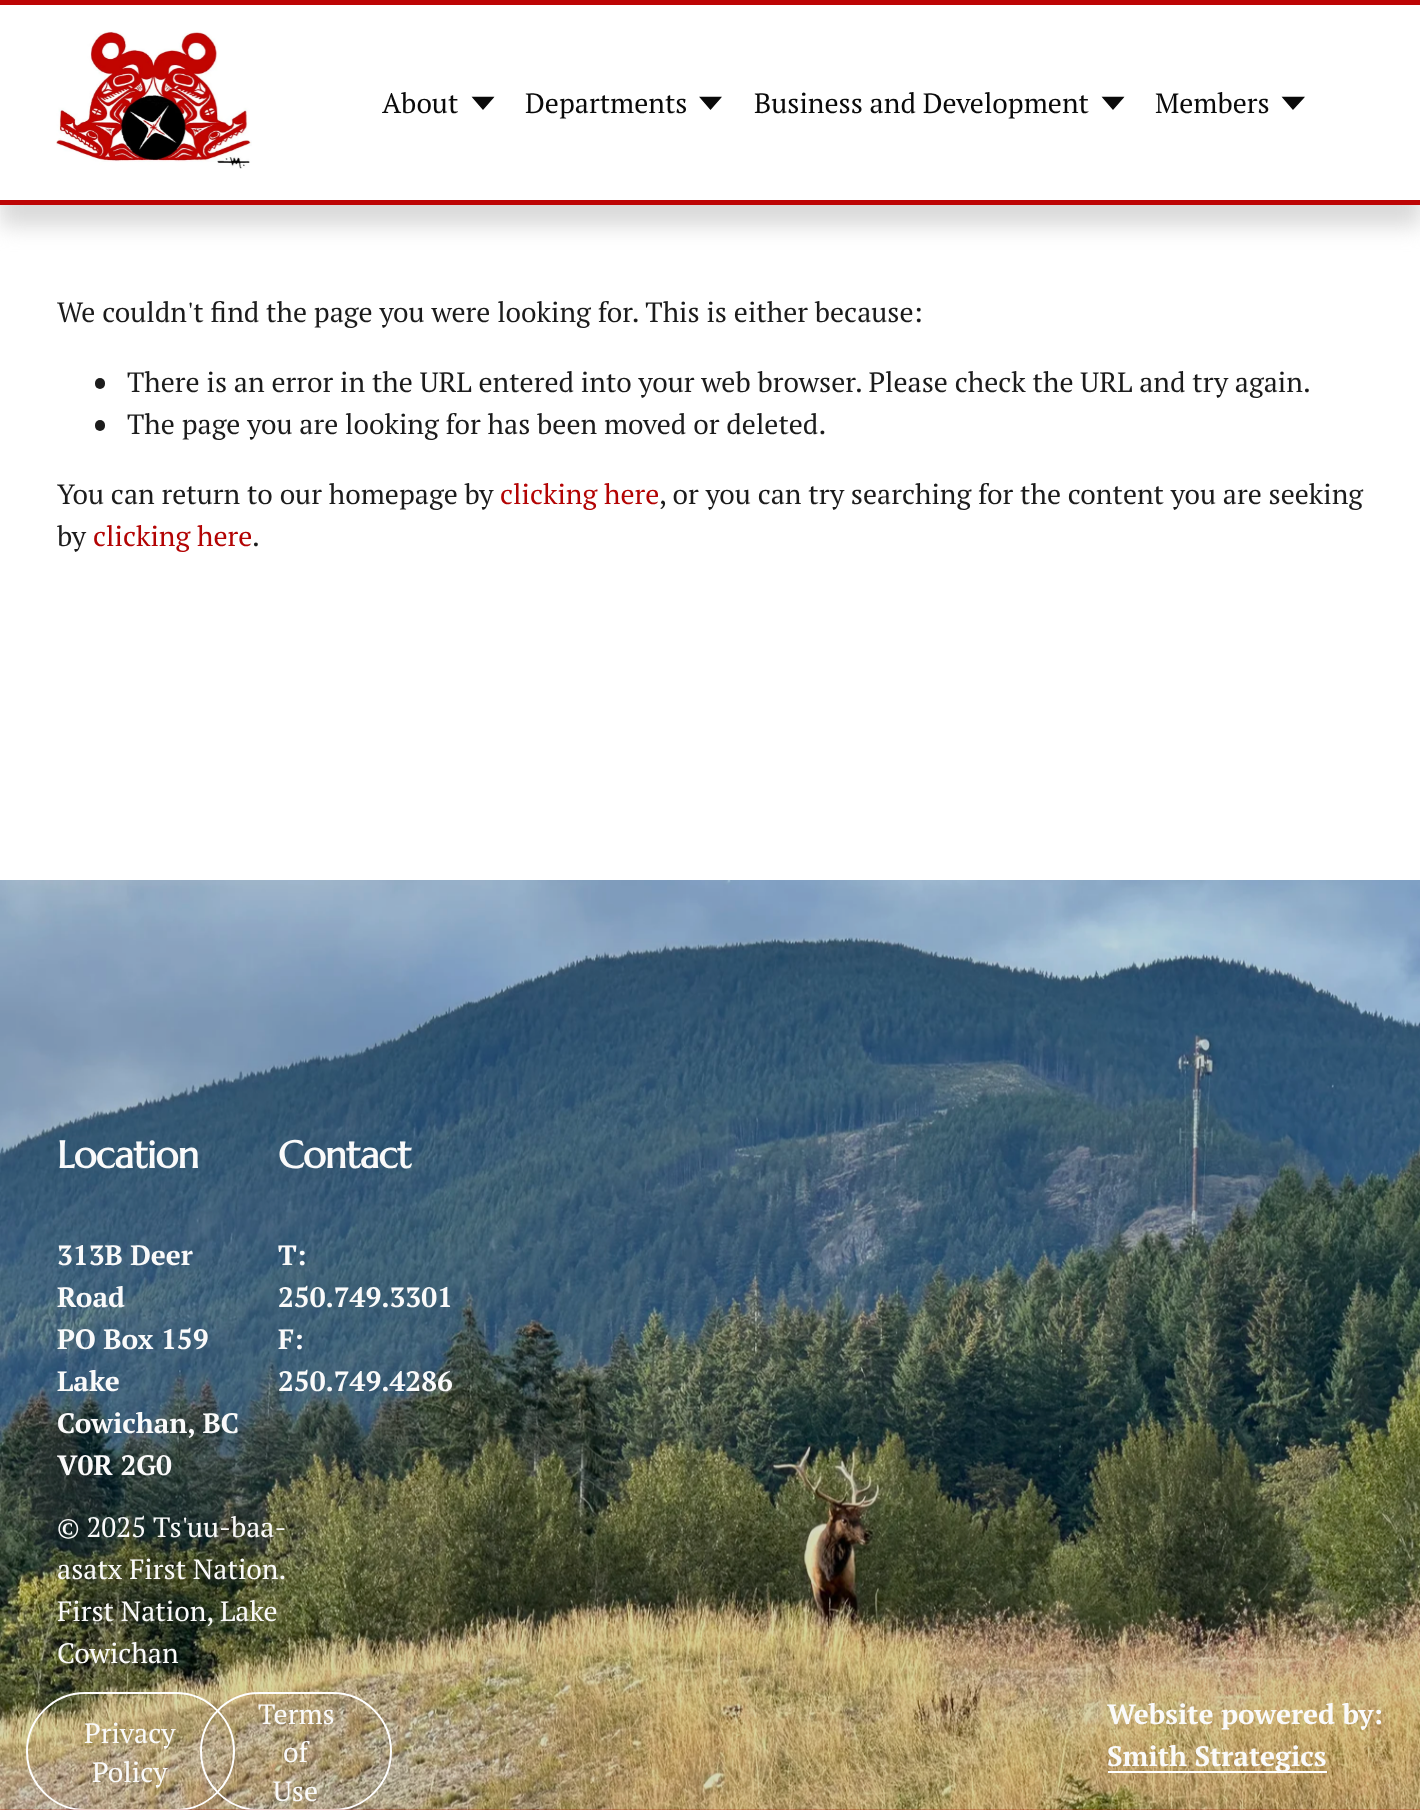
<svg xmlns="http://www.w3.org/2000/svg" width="1420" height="1810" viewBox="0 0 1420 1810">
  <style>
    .t1 { font: 28px PT Serif; fill: #0a0a0a; }
    .t2 { font: 28px PT Serif; fill: #1c1c1c; }
    .t3 { font: 28px PT Serif; fill: #b30303; }
    .t4 { font: bold 38px Marcellus; letter-spacing: -0.75px; fill: #fafafa; }
    .t5 { font: bold 28px PT Serif; fill: #fafafa; }
    .t6 { font: 28px PT Serif; fill: #fafafa; }
  </style>
  <rect width="100%" height="100%" fill="#fff"/>
  <rect x="0" y="21" width="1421" height="205" fill="#d9d9d9" filter="blur(10.5px)"/>
  <rect x="0" y="0" width="1420" height="5" fill="#bd0505"/>
  <rect x="0" y="200" width="1420" height="5" fill="#bd0505"/>
  <rect x="0" y="5" width="1420" height="195" fill="#fff"/>
  <image x="56" y="30" width="196" height="139" href="images/1.png"/>
  <text x="382" y="113" class="t1">About</text>
  <path d="M493 97.5L483 109L473 97.5Z" fill="#0a0a0a" stroke="#0a0a0a" stroke-width="1.3" stroke-linecap="square"/>
  <text x="525" y="113" class="t1">Departments</text>
  <path d="M720.5 97.5L710.5 109L700.5 97.5Z" fill="#0a0a0a" stroke="#0a0a0a" stroke-width="1.3" stroke-linecap="square"/>
  <text x="754" y="113" class="t1">Business and Development</text>
  <path d="M1123 97.5L1113 109L1103 97.5Z" fill="#0a0a0a" stroke="#0a0a0a" stroke-width="1.3" stroke-linecap="square"/>
  <text x="1155" y="113" class="t1">Members</text>
  <path d="M1303.5 97.5L1293 109L1283 97.5Z" fill="#0a0a0a" stroke="#0a0a0a" stroke-width="1.3" stroke-linecap="square"/>
  <text x="57" y="322" class="t2">We couldn't find the page you were looking for. This is either because:</text>
  <rect x="95" y="378" width="10" height="11" rx="5" fill="#1c1c1c"/>
  <text x="127" y="392" class="t2">There is an error in the URL entered into your web browser. Please check the URL and try again.</text>
  <rect x="95" y="420" width="10" height="11" rx="5" fill="#1c1c1c"/>
  <text x="127" y="434" class="t2">The page you are looking for has been moved or deleted.</text>
  <text x="57" y="504" class="t2">You can return to our homepage by</text>
  <text x="500" y="504" class="t3">clicking here</text>
  <text x="659" y="504" class="t2">, or you can try searching for the content you are seeking</text>
  <text x="57" y="546" class="t2">by</text>
  <text x="93" y="546" class="t3">clicking here</text>
  <text x="252" y="546" class="t2">.</text>
  <image x="0" y="880" width="1420" height="930" href="images/2.png"/>
  <text x="57" y="1168" class="t4">Location</text>
  <text x="57" y="1265" class="t5">313B Deer</text>
  <text x="57" y="1307" class="t5">Road</text>
  <text x="57" y="1349" class="t5">PO Box 159</text>
  <text x="57" y="1391" class="t5">Lake</text>
  <text x="57" y="1433" class="t5">Cowichan, BC</text>
  <text x="57" y="1475" class="t5">V0R 2G0</text>
  <text x="278" y="1168" class="t4">Contact</text>
  <text x="278" y="1265" class="t5">T:</text>
  <text x="278" y="1307" class="t5">250.749.3301</text>
  <text x="278" y="1349" class="t5">F:</text>
  <text x="278" y="1391" class="t5">250.749.4286</text>
  <text x="57" y="1537" class="t6">© 2025 Ts'uu-baa-</text>
  <text x="57" y="1579" class="t6">asatx First Nation.</text>
  <text x="57" y="1621" class="t6">First Nation, Lake</text>
  <text x="57" y="1663" class="t6">Cowichan</text>
  <rect x="27" y="1693" width="207" height="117" rx="58.5" fill="none" stroke="#fff" stroke-width="2"/>
  <text x="84" y="1743" class="t6">Privacy</text>
  <text x="92" y="1782" class="t6">Policy</text>
  <rect x="201" y="1693" width="190" height="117" rx="58.5" fill="none" stroke="#fff" stroke-width="2"/>
  <text x="258" y="1724" class="t6">Terms</text>
  <text x="283" y="1762" class="t6">of</text>
  <text x="273" y="1801" class="t6">Use</text>
  <text x="1107" y="1724" class="t5">Website powered by:</text>
  <rect x="1108" y="1771" width="219" height="2" fill="#fff"/>
  <text x="1107" y="1766" class="t5">Smith Strategics</text>
  <path d="M-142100 1346V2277M0 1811.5H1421" fill="none" stroke="#c20505" stroke-width="3.5" stroke-linecap="square"/>
</svg>
